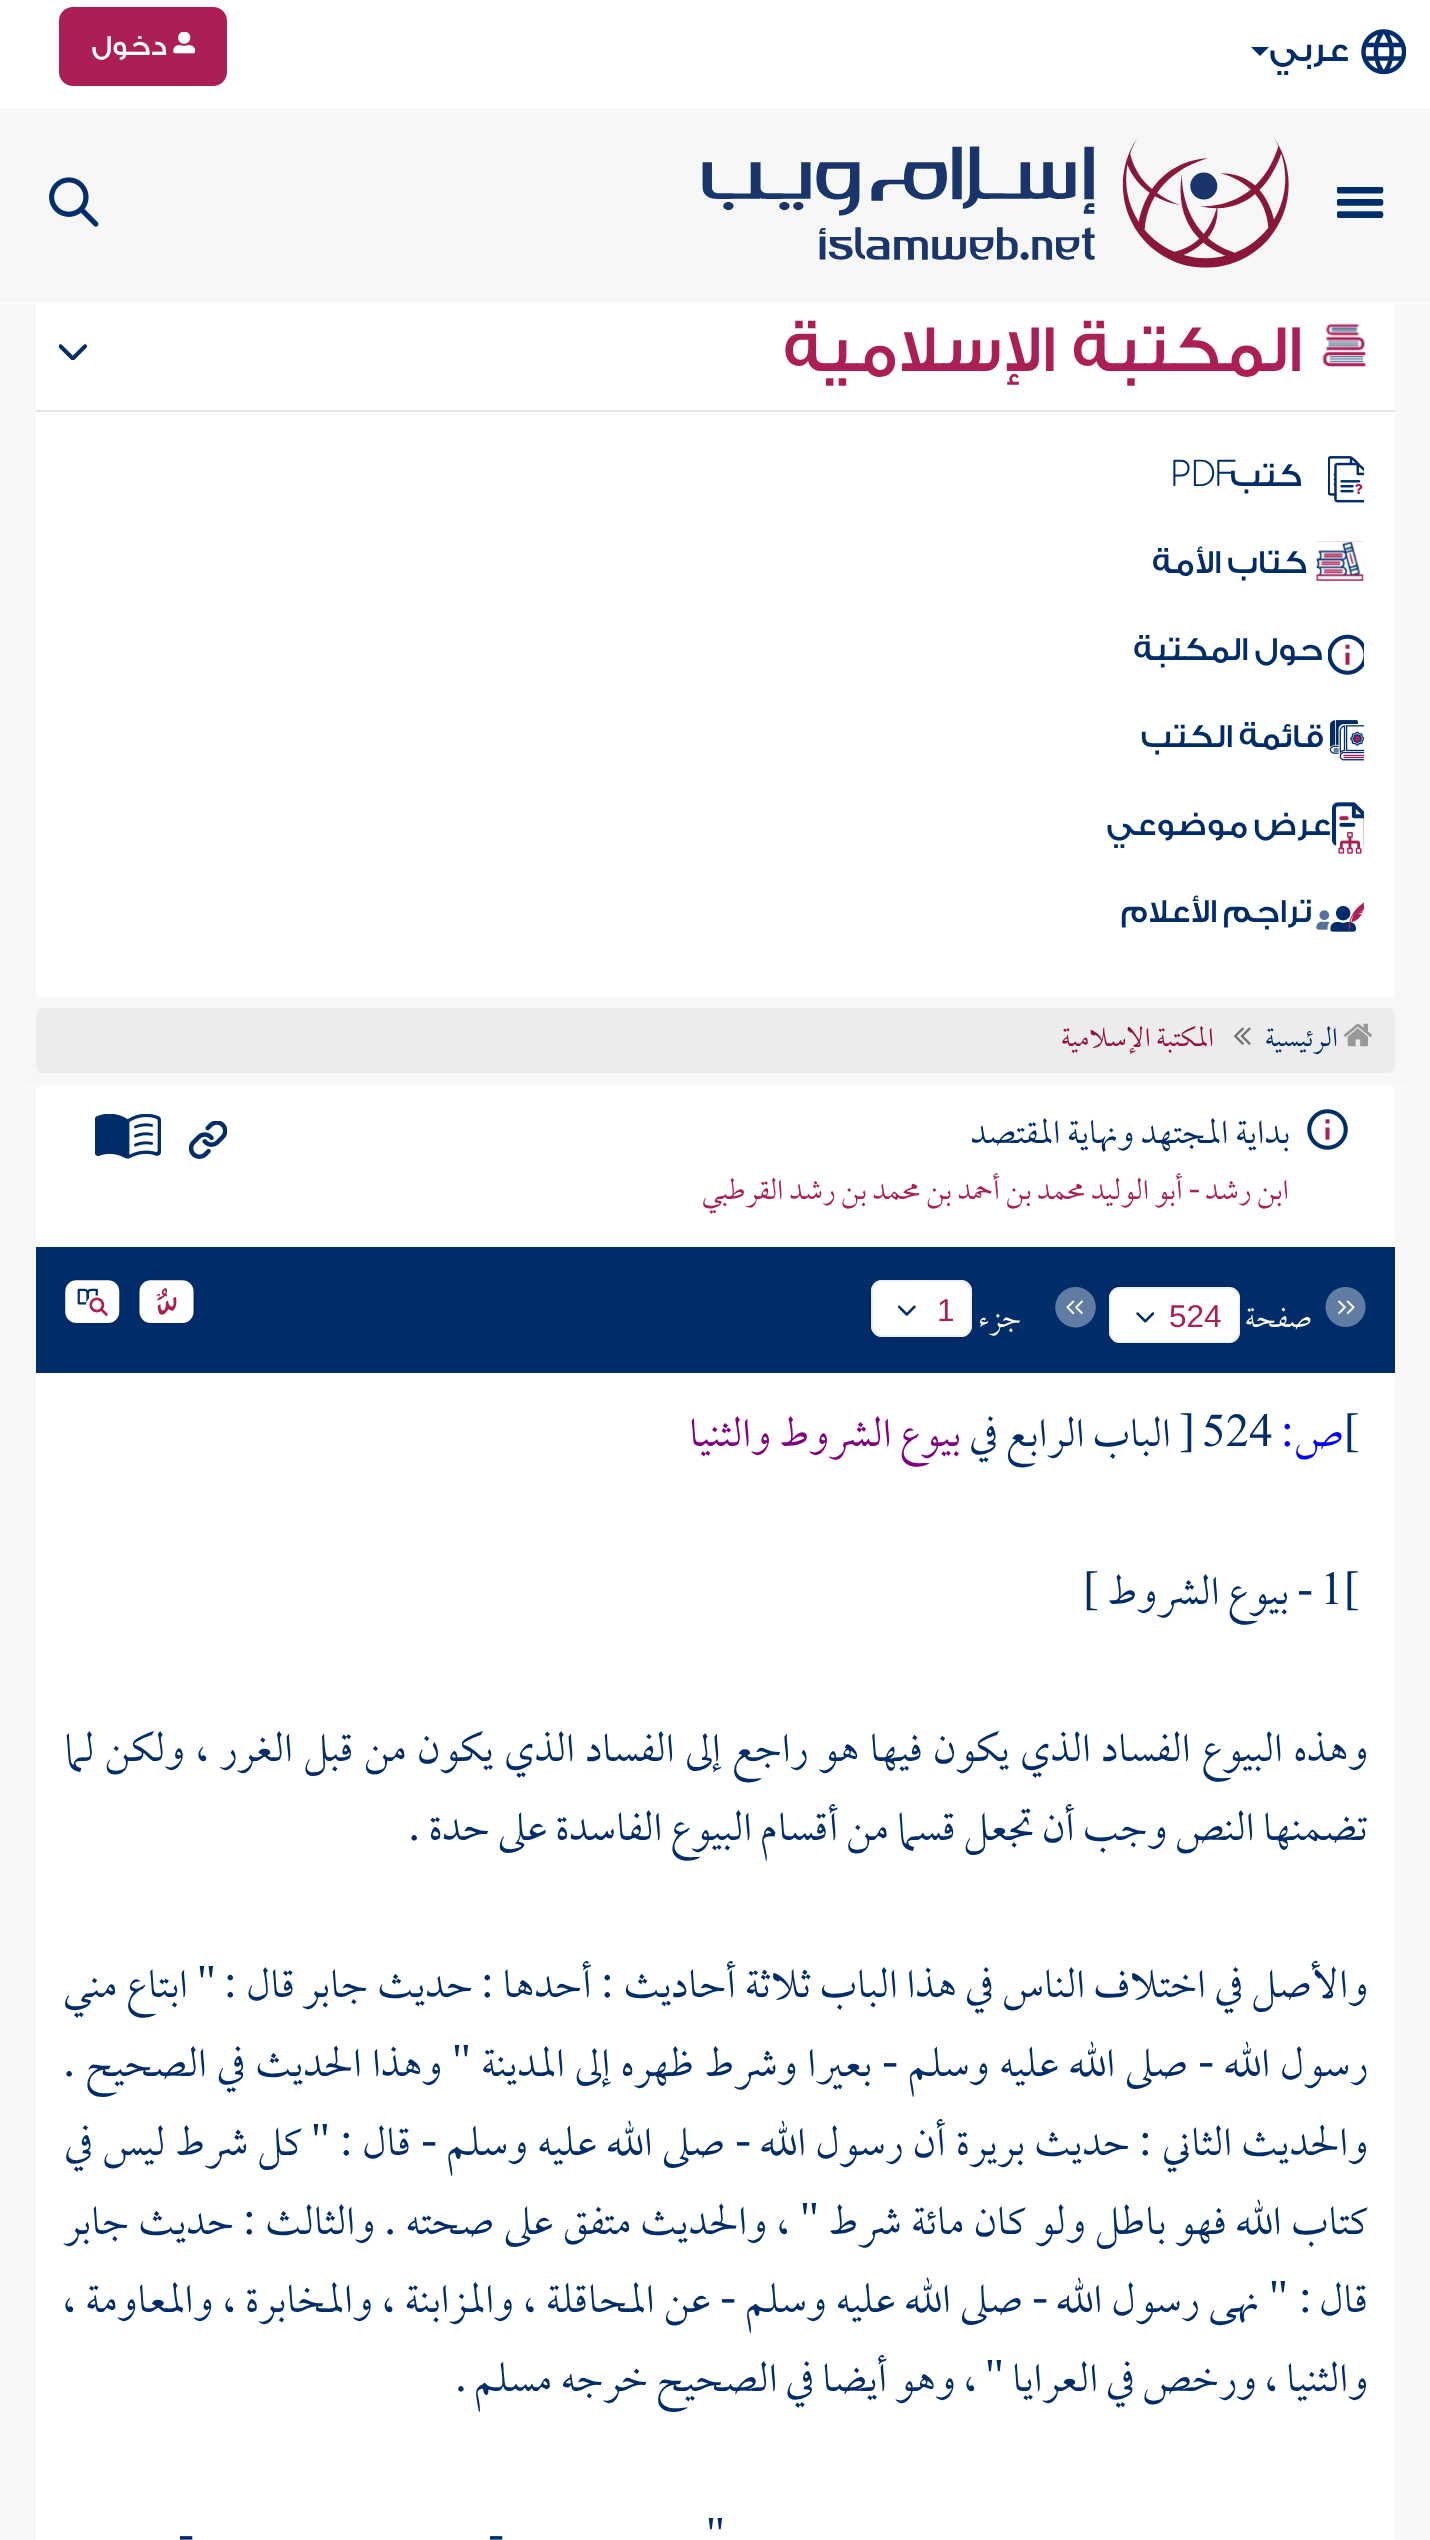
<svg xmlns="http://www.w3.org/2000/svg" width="1430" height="2540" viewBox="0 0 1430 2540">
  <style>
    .t1 { font: 500 36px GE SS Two; direction: rtl; fill: #002d6a; }
    .t2 { font: 500 29px GE SS Two; direction: rtl; fill: #fff; }
    .t3 { font: 500 67.5px GE SS Two; direction: rtl; fill: #ab1e56; }
    .t4 { font: 300 33.75px Comfortaa; fill: #002d6a; }
    .t5 { font: 500 33.75px GE SS Two; direction: rtl; fill: #002d6a; }
    .t6 { font: 300 31.5px 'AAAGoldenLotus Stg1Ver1'; direction: rtl; fill: #002d6a; }
    .t7 { font: 300 31.5px 'AAAGoldenLotus Stg1Ver1'; direction: rtl; fill: #970c44; }
    .t8 { font: 300 39.5px 'AAAGoldenLotus Stg1Ver1'; direction: rtl; fill: #002d6a; }
    .t9 { font: 300 33.75px 'AAAGoldenLotus Stg1Ver1'; direction: rtl; fill: #ab1e56; }
    .t10 { font: 33.75px Liberation Serif; direction: rtl; fill: #ab1e56; }
    .t11 { font: 300 33.75px 'AAAGoldenLotus Stg1Ver1'; direction: rtl; fill: #fff; }
    .t12 { font: 31.5px Liberation Sans; fill: #ab1e56; }
    .t13 { font: 47.25px Liberation Serif; fill: #002d6a; }
    .t14 { font: 300 47.25px 'AAAGoldenLotus Stg1Ver1'; direction: rtl; fill: #00f; }
    .t15 { font: 47.25px Liberation Serif; direction: rtl; fill: #00f; }
    .t16 { font: 300 47.25px 'AAAGoldenLotus Stg1Ver1'; fill: #002d6a; }
    .t17 { font: 300 47.25px 'AAAGoldenLotus Stg1Ver1'; direction: rtl; fill: #002d6a; }
    .t18 { font: 300 47.25px 'AAAGoldenLotus Stg1Ver1'; direction: rtl; fill: #800080; }
    .t19 { font: 47.25px Liberation Serif; direction: rtl; fill: #002d6a; }
  </style>
  <rect width="100%" height="100%" fill="#f7f7f7"/>
  <rect x="0" y="0" width="1430" height="108" fill="#fff"/>
  <image x="1361" y="29" width="45" height="45" href="images/1.png"/>
  <text x="1349" y="61" class="t1">عربي</text>
  <path d="M1251 47H1269L1260 56Z" fill="#012d6b"/>
  <rect x="59" y="7" width="168" height="79" rx="14" fill="#ab1e56"/>
  <image x="173" y="32" width="23" height="22" href="images/2.png"/>
  <text x="167" y="55" class="t2">دخول</text>
  <image x="1337" y="187" width="47" height="31" href="images/3.png"/>
  <image x="702" y="138" width="587" height="130" href="images/4.png"/>
  <image x="49" y="177" width="50" height="50" href="images/5.png"/>
  <rect x="0" y="302" width="1430" height="2" fill="#fbfbfb"/>
  <rect x="23" y="1085" width="1386" height="2" fill="#fbfbfb"/>
  <rect x="36" y="304" width="1359" height="693" fill="#fff"/>
  <image x="1322" y="323" width="44" height="44" href="images/6.png"/>
  <text x="1302" y="371" class="t3">المكتبة الإسلامية</text>
  <image x="59" y="344" width="28" height="16" href="images/7.png"/>
  <rect x="36" y="410" width="1359" height="2" fill="#e5e5e5"/>
  <image x="1328" y="456" width="36" height="47" href="images/8.png"/>
  <text x="1170" y="486" class="t4">PDF</text>
  <text x="1302" y="486" class="t5">كتب</text>
  <image x="1316" y="541" width="48" height="41" href="images/9.png"/>
  <text x="1307" y="573" word-spacing="-2" class="t5">كتاب الأمة</text>
  <image x="1328" y="634" width="36" height="41" href="images/10.png"/>
  <text x="1323" y="660" word-spacing="-2" class="t5">حول المكتبة</text>
  <image x="1330" y="720" width="34" height="41" href="images/11.png"/>
  <text x="1324" y="747" word-spacing="-2" class="t5">قائمة الكتب</text>
  <image x="1332" y="802" width="32" height="52" href="images/12.png"/>
  <text x="1331" y="835" word-spacing="-2" class="t5">عرض موضوعي</text>
  <image x="1316" y="902" width="48" height="30" href="images/13.png"/>
  <text x="1312" y="922" word-spacing="-2" class="t5">تراجم الأعلام</text>
  <rect x="36" y="1008" width="1359" height="65" rx="7" fill="#ececec"/>
  <image x="1343" y="1023" width="29" height="24" href="images/14.png"/>
  <text x="1338" y="1046" class="t6">الرئيسية</text>
  <image x="1233" y="1027" width="18" height="18" href="images/15.png"/>
  <text x="1214" y="1046" class="t7">المكتبة الإسلامية</text>
  <rect x="36" y="1087" width="1359" height="160" fill="#fff"/>
  <image x="1307" y="1109" width="41" height="41" href="images/16.png"/>
  <text x="1290" y="1143" class="t8">بداية المجتهد ونهاية المقتصد</text>
  <text x="1289" y="1199" class="t9">ابن رشد</text>
  <text x="1200" y="1199" class="t10">-</text>
  <text x="1183" y="1199" class="t9">أبو الوليد محمد بن أحمد بن محمد بن رشد القرطبي</text>
  <image x="189" y="1121" width="38" height="38" href="images/17.png"/>
  <image x="95" y="1114" width="66" height="45" href="images/18.png"/>
  <rect x="36" y="1247" width="1359" height="126" fill="#002d6a"/>
  <image x="1325" y="1287" width="41" height="40" href="images/19.png"/>
  <text x="1312" y="1327" class="t11">صفحة</text>
  <rect x="1109" y="1287" width="131" height="56" rx="11" fill="#00000029" filter="blur(2px)"/>
  <rect x="1109" y="1287" width="131" height="56" rx="11" fill="#fff"/>
  <rect x="1110" y="1288" width="129" height="54" rx="10" fill="none" stroke="#eaeaeab0" stroke-width="2"/>
  <text x="1169" y="1327" class="t12">524</text>
  <image x="1136" y="1312" width="18" height="11" href="images/20.png"/>
  <image x="1055" y="1287" width="41" height="41" href="images/21.png"/>
  <rect x="871" y="1280" width="101" height="57" rx="11" fill="#00000029" filter="blur(2px)"/>
  <rect x="871" y="1280" width="101" height="57" rx="11" fill="#fff"/>
  <rect x="872" y="1281" width="99" height="55" rx="10" fill="none" stroke="#eaeaeab0" stroke-width="2"/>
  <text x="937" y="1321" class="t12">1</text>
  <image x="898" y="1305" width="18" height="11" href="images/22.png"/>
  <text x="1021" y="1327" class="t11">جزء</text>
  <image x="138" y="1279" width="57" height="46" href="images/23.png"/>
  <image x="64" y="1279" width="57" height="46" href="images/24.png"/>
  <rect x="36" y="1373" width="1359" height="1167" fill="#fff"/>
  <text x="1344" y="1446" class="t13">[</text>
  <text x="1344" y="1446" class="t14">ص</text>
  <text x="1294" y="1446" class="t15">:</text>
  <text x="1202" y="1446" class="t16">524</text>
  <text x="1179" y="1446" class="t13">]</text>
  <text x="1171" y="1446" class="t17">الباب الرابع في</text>
  <text x="961" y="1446" class="t18">بيوع الشروط والثنيا</text>
  <text x="1344" y="1604" class="t13">[</text>
  <text x="1320" y="1604" class="t16">1</text>
  <text x="1313" y="1604" class="t19">-</text>
  <text x="1289" y="1604" class="t17">بيوع الشروط</text>
  <text x="1099" y="1604" class="t19">]</text>
  <text x="1368" y="1761" word-spacing="2.6" class="t17">وهذه البيوع الفساد الذي يكون فيها هو راجع إلى الفساد الذي يكون من قبل الغرر ، ولكن لما</text>
  <text x="1368" y="1840" class="t17">تضمنها النص وجب أن تجعل قسما من أقسام البيوع الفاسدة على حدة</text>
  <text x="420" y="1840" class="t19">.</text>
  <text x="1368" y="1997" word-spacing="0.5" class="t17">والأصل في اختلاف الناس في هذا الباب ثلاثة أحاديث</text>
  <text x="614" y="1997" class="t19">:</text>
  <text x="592" y="1997" class="t17">أحدها</text>
  <text x="494" y="1997" class="t19">:</text>
  <text x="473" y="1997" class="t17">حديث</text>
  <text x="368" y="1997" class="t17">جابر</text>
  <text x="295" y="1997" class="t17">قال</text>
  <text x="237" y="1997" class="t19">:</text>
  <text x="216" y="1997" class="t19">"</text>
  <text x="188" y="1997" word-spacing="1" class="t17">ابتاع مني</text>
  <text x="1368" y="2076" word-spacing="2" class="t17">رسول الله</text>
  <text x="1214" y="2076" class="t19">-</text>
  <text x="1188" y="2076" word-spacing="2" class="t17">صلى الله عليه وسلم</text>
  <text x="898" y="2076" class="t19">-</text>
  <text x="872" y="2076" word-spacing="2" class="t17">بعيرا وشرط ظهره إلى</text>
  <text x="565" y="2076" class="t17">المدينة</text>
  <text x="471" y="2076" class="t19">"</text>
  <text x="442" y="2076" word-spacing="2" class="t17">وهذا الحديث في الصحيح</text>
  <text x="75" y="2076" class="t19">.</text>
  <text x="1368" y="2155" word-spacing="1.5" class="t17">والحديث الثاني</text>
  <text x="1152" y="2155" class="t19">:</text>
  <text x="1130" y="2155" class="t17">حديث</text>
  <text x="1025" y="2155" class="t17">بريرة</text>
  <text x="946" y="2155" word-spacing="1.5" class="t17">أن رسول الله</text>
  <text x="751" y="2155" class="t19">-</text>
  <text x="725" y="2155" word-spacing="1.5" class="t17">صلى الله عليه وسلم</text>
  <text x="437" y="2155" class="t19">-</text>
  <text x="411" y="2155" class="t17">قال</text>
  <text x="353" y="2155" class="t19">:</text>
  <text x="330" y="2155" class="t19">"</text>
  <text x="302" y="2155" word-spacing="1.5" class="t17">كل شرط ليس في</text>
  <text x="1368" y="2234" word-spacing="1.5" class="t17">كتاب الله فهو باطل ولو كان مائة شرط</text>
  <text x="819" y="2234" class="t19">"</text>
  <text x="790" y="2234" word-spacing="1.5" class="t17">، والحديث متفق على صحته</text>
  <text x="396" y="2234" class="t19">.</text>
  <text x="375" y="2234" class="t17">والثالث</text>
  <text x="256" y="2234" class="t19">:</text>
  <text x="234" y="2234" class="t17">حديث</text>
  <text x="129" y="2234" class="t17">جابر</text>
  <text x="1368" y="2312" class="t17">قال</text>
  <text x="1312" y="2312" word-spacing="-1" class="t19">: "</text>
  <text x="1259" y="2312" word-spacing="1.25" class="t17">نهى رسول الله</text>
  <text x="1048" y="2312" class="t19">-</text>
  <text x="1023" y="2312" word-spacing="1.25" class="t17">صلى الله عليه وسلم</text>
  <text x="736" y="2312" class="t19">-</text>
  <text x="711" y="2312" word-spacing="1.25" class="t17">عن المحاقلة ، والمزابنة ، والمخابرة ، والمعاومة ،</text>
  <text x="1368" y="2391" class="t17">والثنيا ، ورخص في العرايا</text>
  <text x="1004" y="2391" class="t19">"</text>
  <text x="977" y="2391" class="t17">، وهو أيضا في الصحيح خرجه</text>
  <text x="552" y="2391" class="t17">مسلم</text>
  <text x="455" y="2391" class="t13">.</text>
  <text x="725" y="2549" class="t19">"</text>
  <text x="504" y="2549" class="t19">-</text>
  <text x="194" y="2549" class="t19">-</text>
</svg>
